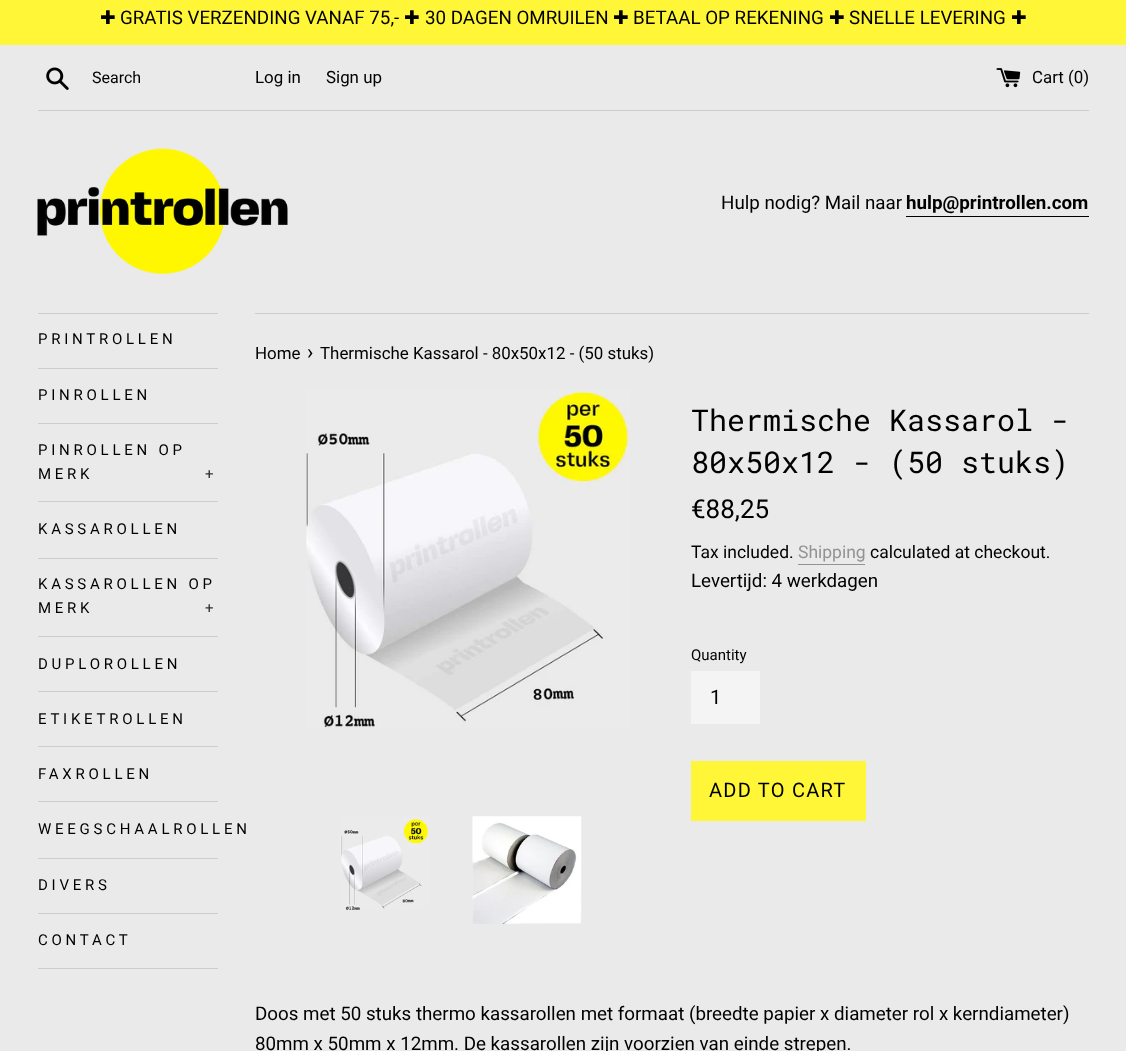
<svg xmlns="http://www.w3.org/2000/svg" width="1126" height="1051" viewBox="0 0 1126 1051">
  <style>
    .t1 { font: 18.75px DejaVu Sans; fill: #000; }
    .t2 { font: 18.75px Roboto; fill: #000; }
    .t3 { font: 16px Roboto; fill: #000; }
    .t4 { font: 16.9px Roboto; fill: #000; }
    .t5 { font: bold 18.75px Roboto; fill: #000; }
    .t6 { font: 15px Roboto; letter-spacing: 3.75px; fill: #000; }
    .t7 { font: 15px Roboto; letter-spacing: 3.75px; fill: #2f2f2f; }
    .t8 { font: 21px Roboto; fill: #000; }
    .t9 { font: 30px Roboto Mono; fill: #000; }
    .t10 { font: 26px Roboto; fill: #000; }
    .t11 { font: 17.5px Roboto; fill: #000; }
    .t12 { font: 17.5px Roboto; fill: #939393; }
    .t13 { font: 15px Roboto; fill: #000; }
    .t14 { font: 20px Roboto; fill: #000; }
    .t15 { font: 20px Roboto; letter-spacing: 1.25px; fill: #000; }
  </style>
  <rect width="100%" height="100%" fill="#eaeaea"/>
  <rect x="0" y="0" width="1126" height="45" fill="#fff637"/>
  <text x="100" y="24" class="t1">✚</text>
  <text x="120" y="24" class="t2">GRATIS VERZENDING VANAF 75,-</text>
  <text x="404" y="24" class="t1">✚</text>
  <text x="425" y="24" class="t2">30 DAGEN OMRUILEN</text>
  <text x="613" y="24" class="t1">✚</text>
  <text x="633" y="24" class="t2">BETAAL OP REKENING</text>
  <text x="829" y="24" class="t1">✚</text>
  <text x="849" y="24" class="t2">SNELLE LEVERING</text>
  <text x="1011" y="24" class="t1">✚</text>
  <image x="46" y="67" width="23" height="23" href="images/1.png"/>
  <text x="92" y="83" class="t3">Search</text>
  <text x="255" y="83" class="t4">Log in</text>
  <text x="326" y="83" class="t4">Sign up</text>
  <image x="996" y="68" width="25" height="20" href="images/2.png"/>
  <text x="1032" y="83" class="t4">Cart (0)</text>
  <rect x="38" y="110" width="1051" height="1" fill="#ccc"/>
  <image x="37" y="148" width="251" height="126" href="images/3.png"/>
  <text x="721" y="209" class="t2">Hulp nodig? Mail naar</text>
  <text x="906" y="209" class="t5">hulp@printrollen.com</text>
  <rect x="906" y="216" width="183" height="1" fill="#000"/>
  <rect x="38" y="313" width="180" height="1" fill="#ccc"/>
  <rect x="38" y="368" width="180" height="1" fill="#ccc"/>
  <text x="38" y="344" class="t6">PRINTROLLEN</text>
  <rect x="38" y="423" width="180" height="1" fill="#ccc"/>
  <text x="38" y="400" class="t6">PINROLLEN</text>
  <rect x="38" y="501" width="180" height="1" fill="#ccc"/>
  <text x="38" y="455" class="t6">PINROLLEN OP</text>
  <text x="38" y="479" class="t6">MERK</text>
  <text x="205" y="479" class="t7">+</text>
  <rect x="38" y="558" width="180" height="1" fill="#ccc"/>
  <text x="38" y="534" class="t6">KASSAROLLEN</text>
  <rect x="38" y="636" width="180" height="1" fill="#ccc"/>
  <text x="38" y="589" class="t6">KASSAROLLEN OP</text>
  <text x="38" y="613" class="t6">MERK</text>
  <text x="205" y="613" class="t7">+</text>
  <rect x="38" y="691" width="180" height="1" fill="#ccc"/>
  <text x="38" y="669" class="t6">DUPLOROLLEN</text>
  <rect x="38" y="746" width="180" height="1" fill="#ccc"/>
  <text x="38" y="724" class="t6">ETIKETROLLEN</text>
  <rect x="38" y="801" width="180" height="1" fill="#ccc"/>
  <text x="38" y="779" class="t6">FAXROLLEN</text>
  <rect x="38" y="858" width="180" height="1" fill="#ccc"/>
  <text x="38" y="834" class="t6">WEEGSCHAALROLLEN</text>
  <rect x="38" y="913" width="180" height="1" fill="#ccc"/>
  <text x="38" y="890" class="t6">DIVERS</text>
  <rect x="38" y="968" width="180" height="1" fill="#ccc"/>
  <text x="38" y="945" class="t6">CONTACT</text>
  <rect x="255" y="313" width="834" height="1" fill="#ccc"/>
  <text x="255" y="359" class="t4">Home</text>
  <text x="307" y="359" class="t8">›</text>
  <text x="320" y="359" class="t4">Thermische Kassarol - 80x50x12 - (50 stuks)</text>
  <image x="306" y="388" width="324" height="340" href="images/4.png"/>
  <image x="340" y="816" width="90" height="94" href="images/5.png"/>
  <image x="472" y="816" width="110" height="108" href="images/6.png"/>
  <text x="691" y="431" class="t9">Thermische Kassarol -</text>
  <text x="691" y="473" class="t9">80x50x12 - (50 stuks)</text>
  <text x="691" y="518" class="t10">€88,25</text>
  <text x="691" y="558" class="t11">Tax included.</text>
  <text x="798" y="558" class="t12">Shipping</text>
  <rect x="798" y="564" width="67" height="1" fill="#939393"/>
  <text x="870" y="558" class="t11">calculated at checkout.</text>
  <text x="691" y="587" class="t2">Levertijd: 4 werkdagen</text>
  <text x="691" y="660" class="t13">Quantity</text>
  <rect x="691" y="671" width="69" height="53" fill="#f4f4f4"/>
  <text x="710" y="704" class="t14">1</text>
  <rect x="691" y="761" width="175" height="60" fill="#fff637"/>
  <text x="709" y="797" class="t15">ADD TO CART</text>
  <text x="255" y="1020" class="t2">Doos met 50 stuks thermo kassarollen met formaat (breedte papier x diameter rol x kerndiameter)</text>
  <text x="255" y="1050" class="t2">80mm x 50mm x 12mm. De kassarollen zijn voorzien van einde strepen.</text>
</svg>
